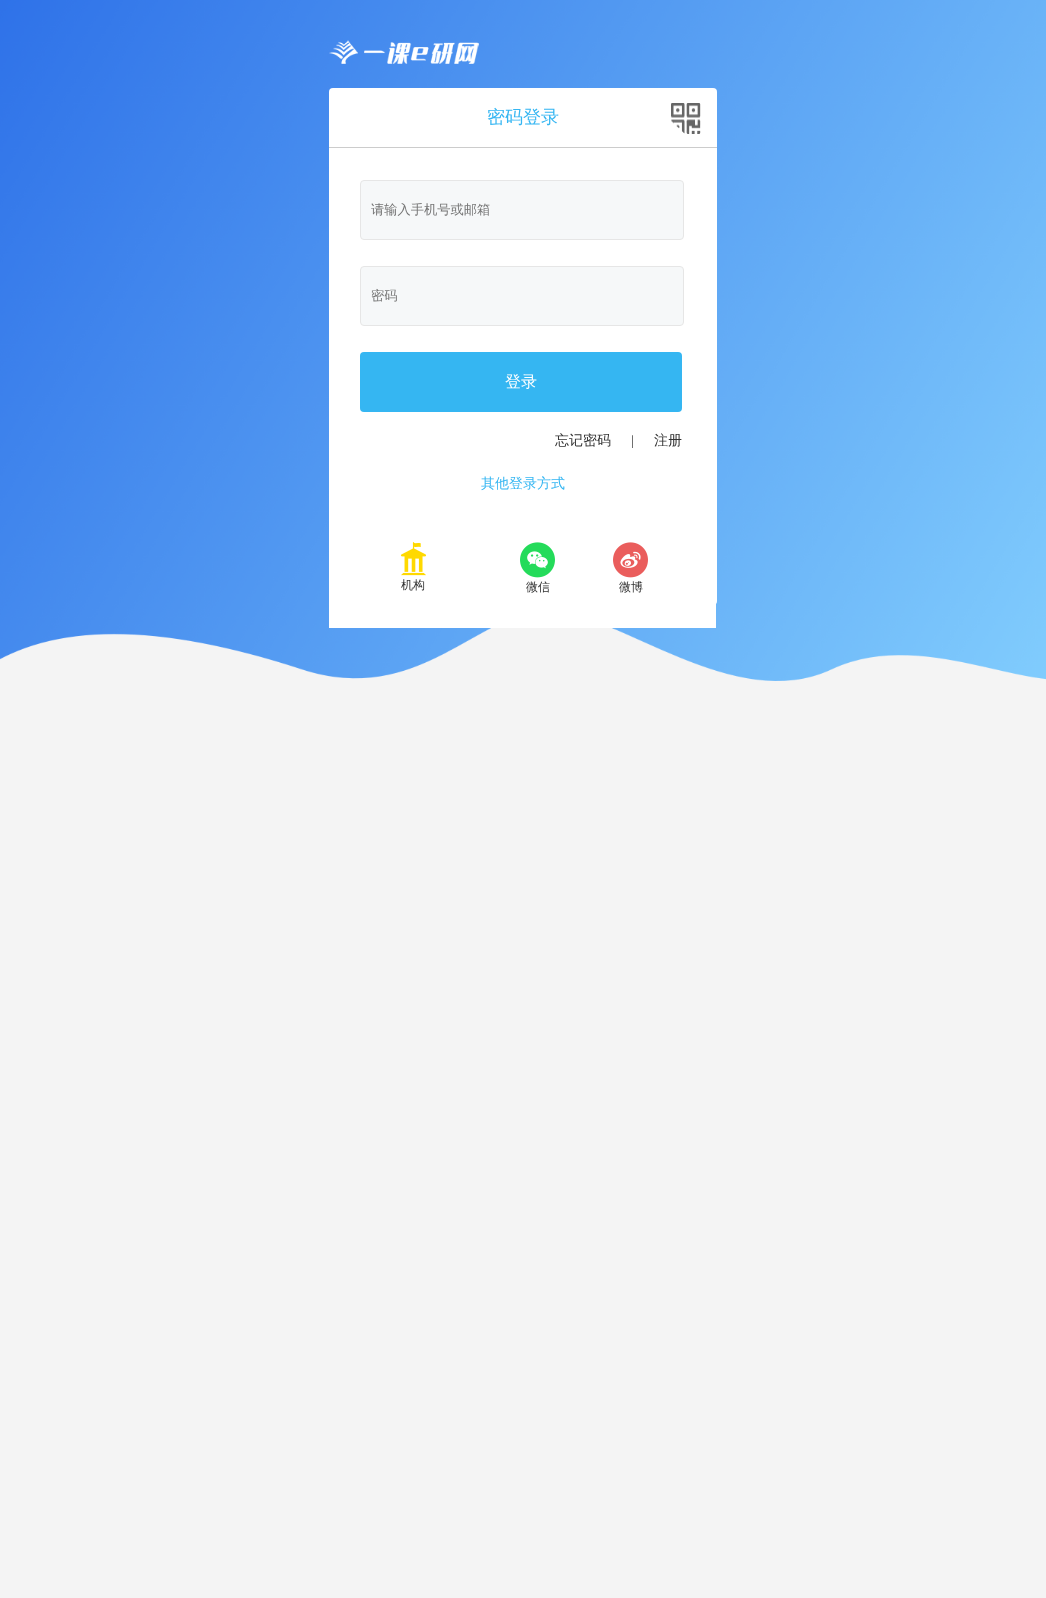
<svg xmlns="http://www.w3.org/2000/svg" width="1046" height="1598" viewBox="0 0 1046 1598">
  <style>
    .t1 { font: 500 18px WenQuanYi Zen Hei; fill: #35b6f2; }
    .t2 { font: 500 13.25px WenQuanYi Zen Hei; fill: #757575; }
    .t3 { font: 500 16px WenQuanYi Zen Hei; fill: #fff; }
    .t4 { font: 500 14px WenQuanYi Zen Hei; fill: #333; }
    .t5 { font: 14px Liberation Serif; fill: #333; }
    .t6 { font: 500 14px WenQuanYi Zen Hei; fill: #35b6f2; }
    .t7 { font: 500 12px WenQuanYi Zen Hei; fill: #333; }
  </style>
  <rect width="100%" height="100%" fill="#f4f4f4"/>
  <image x="0" y="0" width="1046" height="681" href="images/1.png"/>
  <image x="329" y="40" width="150" height="24" href="images/2.png"/>
  <rect x="329" y="88" width="388" height="517" rx="4" fill="#fff"/>
  <rect x="329" y="147" width="388" height="1" fill="#ccc"/>
  <text x="487" y="123" class="t1">密码登录</text>
  <image x="671" y="103" width="30" height="31" href="images/3.png"/>
  <rect x="360.5" y="180.5" width="323" height="59" rx="3.5" fill="#f6f8f9" stroke="#e6e6e6"/>
  <text x="371" y="214" class="t2">请输入手机号或邮箱</text>
  <rect x="360.5" y="266.5" width="323" height="59" rx="3.5" fill="#f6f8f9" stroke="#e6e6e6"/>
  <text x="371" y="300" class="t2">密码</text>
  <rect x="360" y="352" width="322" height="60" rx="4" fill="#35b6f2"/>
  <text x="505" y="387" class="t3">登录</text>
  <text x="555" y="445" class="t4">忘记密码</text>
  <text x="631" y="445" class="t5">|</text>
  <text x="654" y="445" class="t4">注册</text>
  <rect x="329" y="601" width="387" height="27" fill="#fff"/>
  <text x="481" y="488" class="t6">其他登录方式</text>
  <image x="400" y="542" width="27" height="34" href="images/4.png"/>
  <text x="401" y="589" class="t7">机构</text>
  <image x="520" y="542" width="35" height="36" href="images/5.png"/>
  <text x="526" y="591" class="t7">微信</text>
  <image x="613" y="542" width="35" height="36" href="images/6.png"/>
  <text x="619" y="591" class="t7">微博</text>
</svg>
